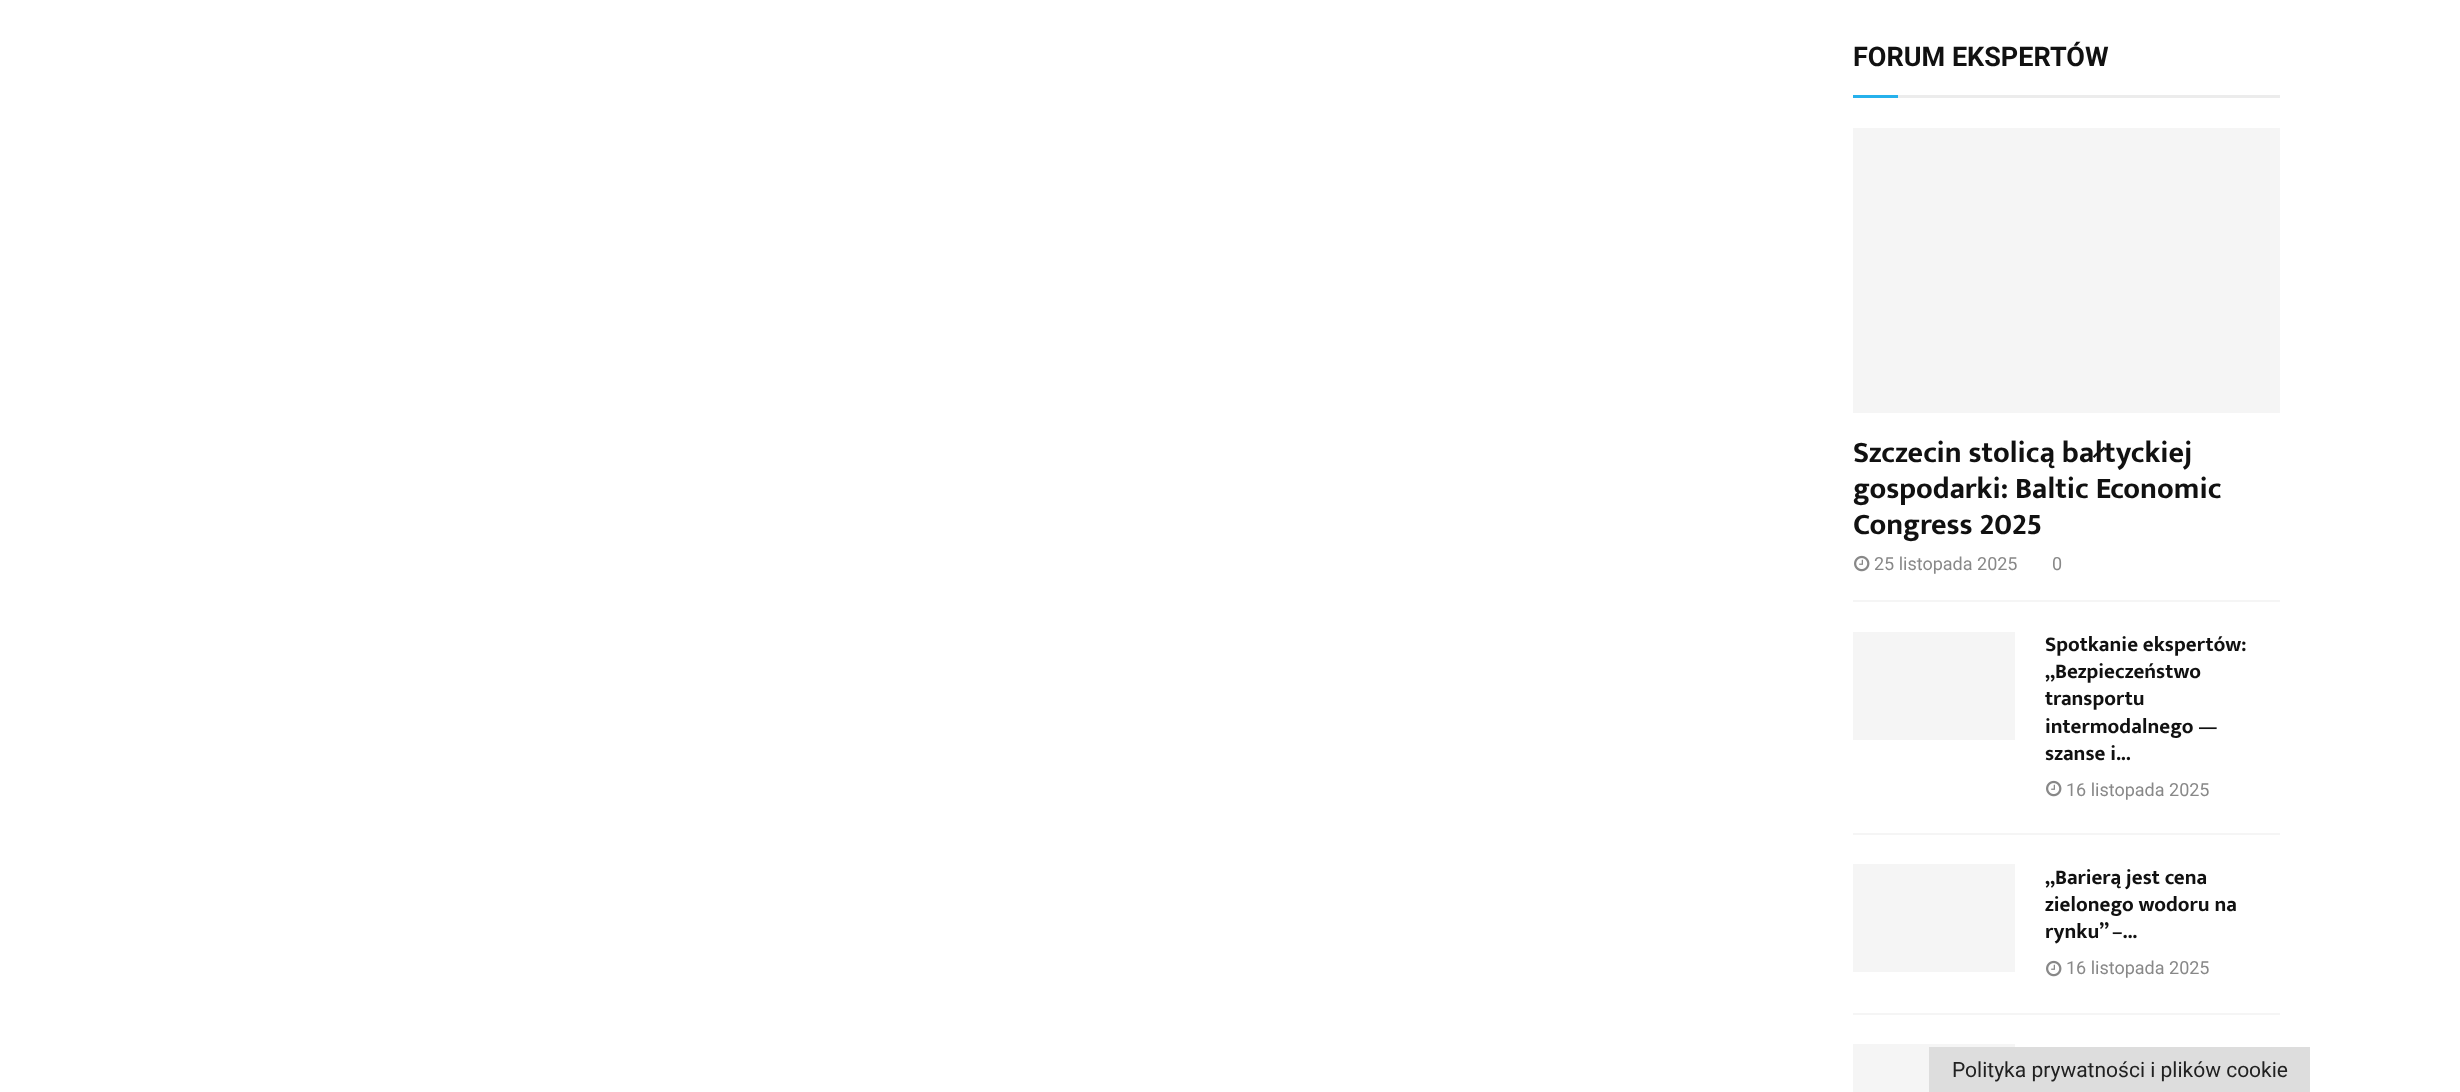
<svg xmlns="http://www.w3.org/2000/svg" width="2460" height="1092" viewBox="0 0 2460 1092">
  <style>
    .t1 { font: bold 27px Roboto; fill: #111; }
    .t2 { font: bold 30px Mukta Vaani; fill: #111; }
    .t3 { font: 18px Roboto; fill: #888; }
    .t4 { font: bold 21px Mukta Vaani; fill: #111; }
    .t5 { font: 21px Roboto; fill: #212121; }
  </style>
  <rect width="100%" height="100%" fill="#fff"/>
  <rect x="1898" y="95" width="382" height="3" fill="#ececec"/>
  <text x="1853" y="66" class="t1">FORUM EKSPERTÓW</text>
  <rect x="1853" y="95" width="45" height="3" fill="#26b1ec"/>
  <rect x="1853" y="600" width="427" height="2" fill="#f5f5f5"/>
  <rect x="1853" y="128" width="427" height="285" fill="#f5f5f5"/>
  <text x="1853" y="462" class="t2">Szczecin stolicą bałtyckiej</text>
  <text x="1853" y="498" class="t2">gospodarki: Baltic Economic</text>
  <text x="1853" y="534" class="t2">Congress 2025</text>
  <image x="1854" y="555" width="16" height="17" href="images/1.png"/>
  <text x="1874" y="570" class="t3">25 listopada 2025</text>
  <text x="2052" y="570" class="t3">0</text>
  <rect x="1853" y="833" width="427" height="2" fill="#f5f5f5"/>
  <rect x="1853" y="632" width="162" height="108" fill="#f5f5f5"/>
  <text x="2045" y="651" class="t4">Spotkanie ekspertów:</text>
  <text x="2045" y="678" class="t4">„Bezpieczeństwo</text>
  <text x="2045" y="705" class="t4">transportu</text>
  <text x="2045" y="733" class="t4">intermodalnego —</text>
  <text x="2045" y="760" class="t4">szanse i...</text>
  <image x="2046" y="780" width="16" height="17" href="images/1.png"/>
  <text x="2066" y="796" class="t3">16 listopada 2025</text>
  <rect x="1853" y="1013" width="427" height="2" fill="#f5f5f5"/>
  <rect x="1853" y="864" width="162" height="108" fill="#f5f5f5"/>
  <text x="2045" y="884" class="t4">„Barierą jest cena</text>
  <text x="2045" y="911" class="t4">zielonego wodoru na</text>
  <text x="2045" y="938" class="t4">rynku” –...</text>
  <image x="2046" y="960" width="16" height="17" href="images/1.png"/>
  <text x="2066" y="974" class="t3">16 listopada 2025</text>
  <rect x="1853" y="1044" width="162" height="48" fill="#f5f5f5"/>
  <rect x="1929" y="1047" width="381" height="45" fill="#ddd"/>
  <text x="1952" y="1077" class="t5">Polityka prywatności i plików cookie</text>
</svg>
